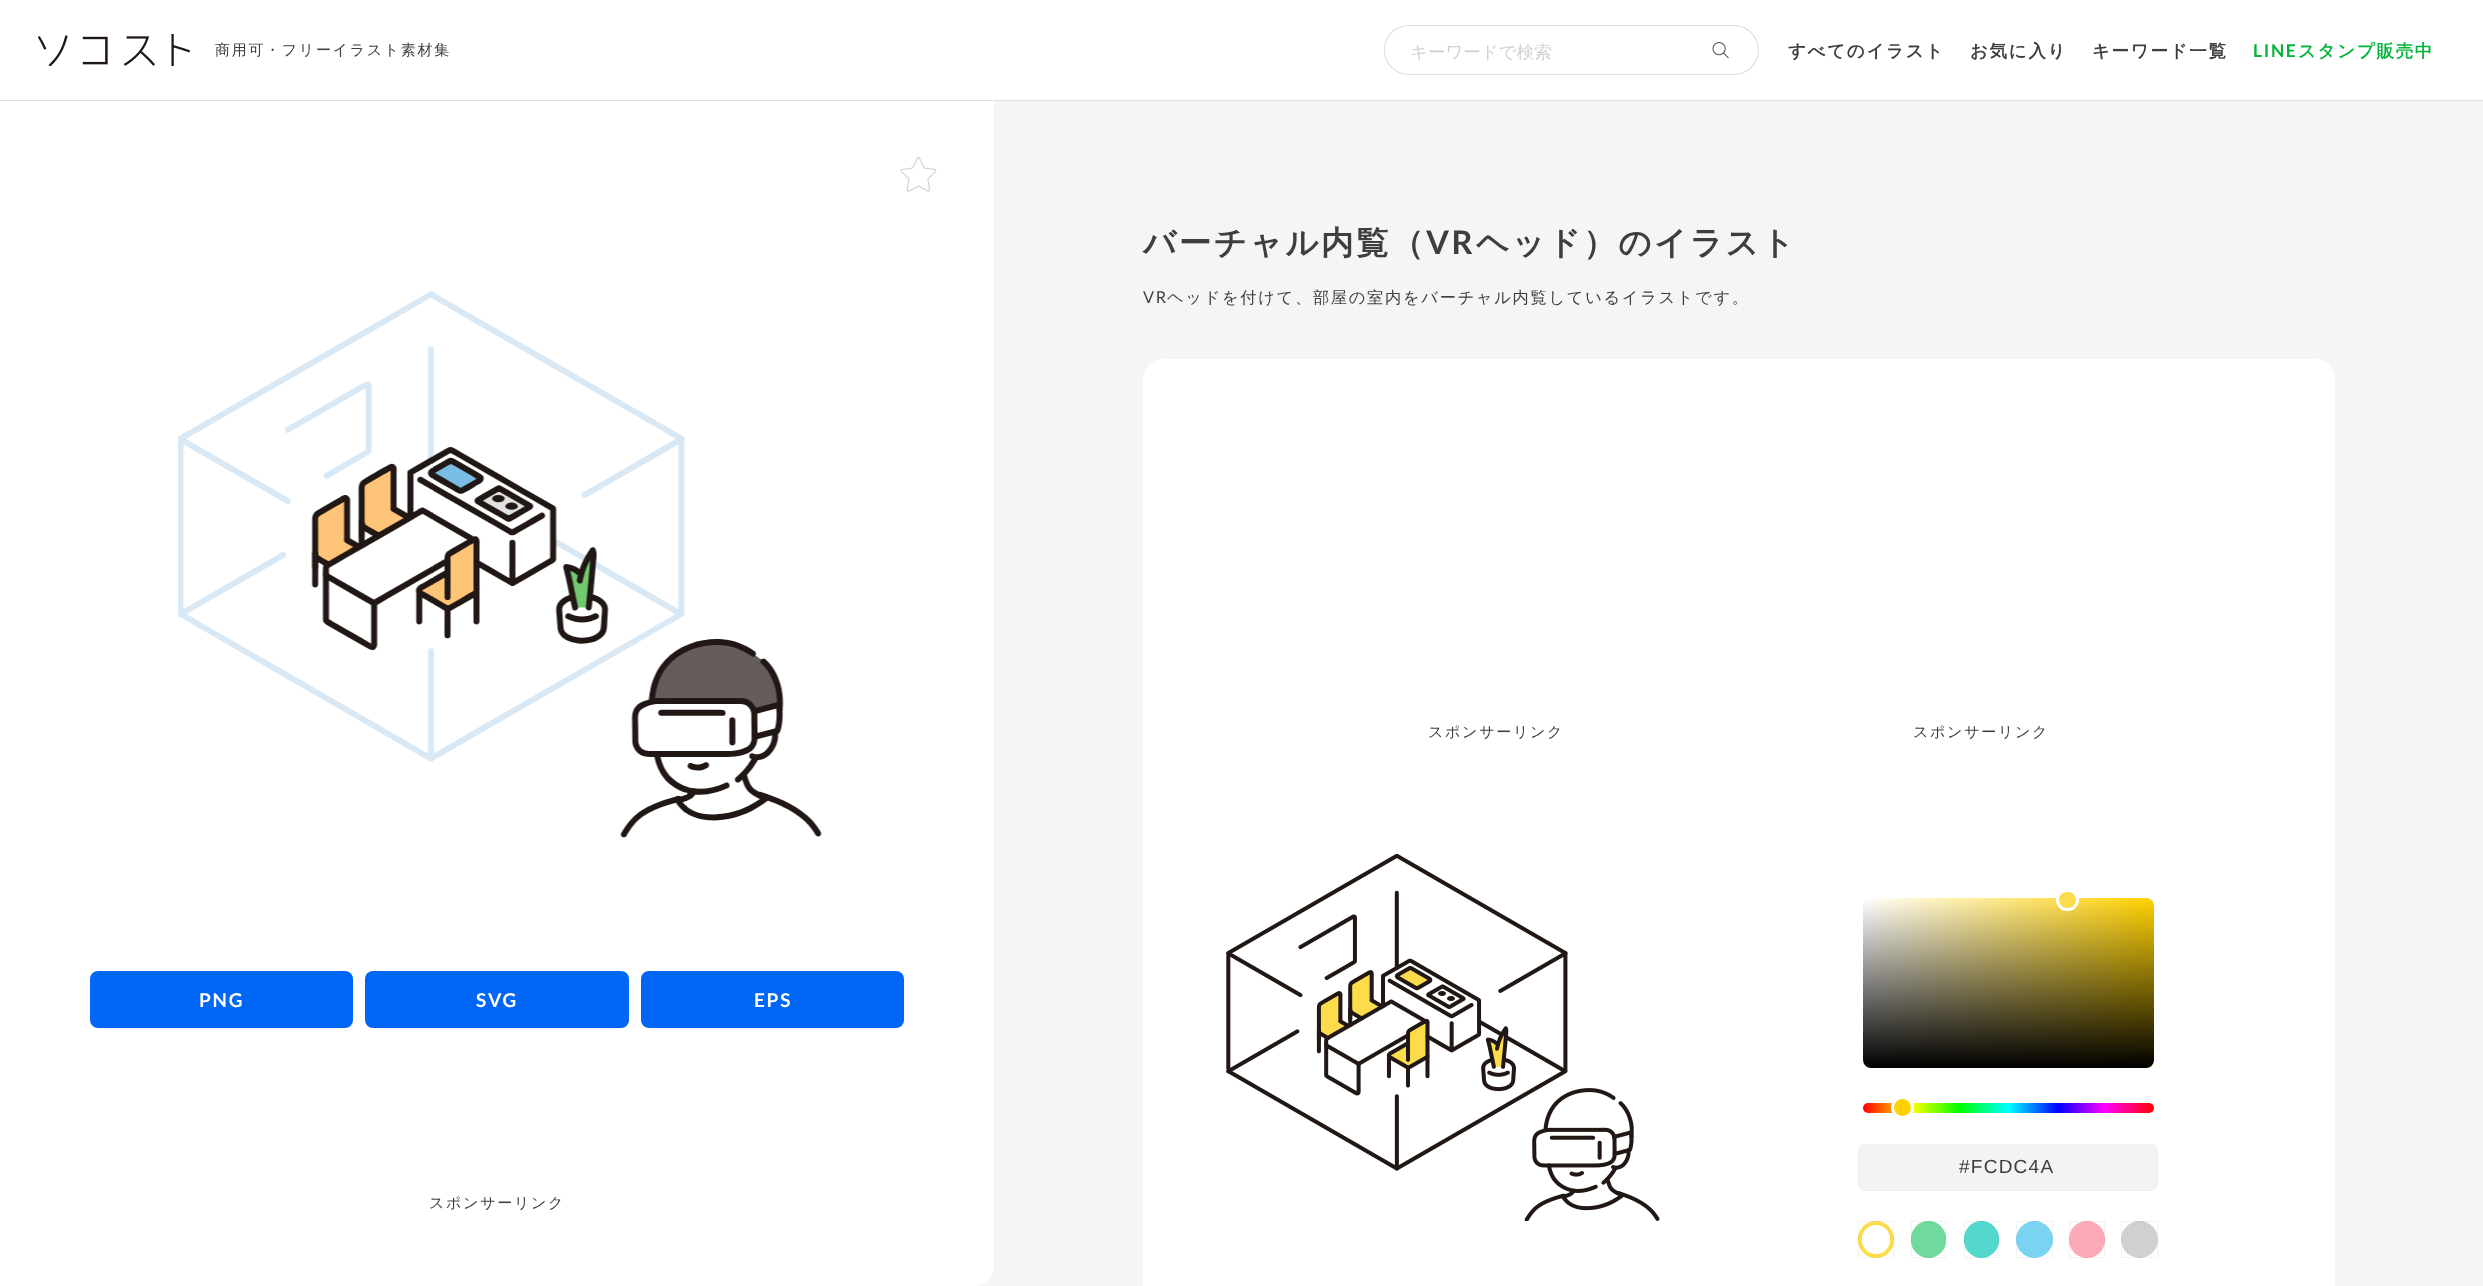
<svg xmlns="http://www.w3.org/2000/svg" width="2483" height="1286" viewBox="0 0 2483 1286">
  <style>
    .t1 { font: 500 15px WenQuanYi Zen Hei; letter-spacing: 1.7px; fill: #3e3e3e; }
    .t2 { font: 500 17.5px WenQuanYi Zen Hei; fill: #d1d1d1; }
    .t3 { font: bold 17.5px WenQuanYi Zen Hei; letter-spacing: 1.7px; fill: #3e3e3e; }
    .t4 { font: bold 17.5px Lato; letter-spacing: 1.7px; fill: #04b53b; }
    .t5 { font: bold 17.5px WenQuanYi Zen Hei; letter-spacing: 1.7px; fill: #04b53b; }
    .t6 { font: bold 32.5px WenQuanYi Zen Hei; letter-spacing: 2.5px; fill: #3e3e3e; }
    .t7 { font: bold 32.5px Lato; letter-spacing: 2.5px; fill: #3e3e3e; }
    .t8 { font: 16.25px Lato; letter-spacing: 1.7px; fill: #3e3e3e; }
    .t9 { font: 500 16.25px WenQuanYi Zen Hei; letter-spacing: 1.7px; fill: #3e3e3e; }
    .t10 { font: bold 19px Lato; letter-spacing: 1.7px; fill: #fff; }
    .t11 { font: 19px Liberation Sans; letter-spacing: 1.25px; fill: #3e3e3e; }
  </style>
  <defs>
    <linearGradient id="g1" gradientUnits="userSpaceOnUse" x1="2154" y1="983" x2="1863" y2="983"><stop offset="0" stop-color="#ffd100"/><stop offset="1" stop-color="#fff"/></linearGradient>
    <linearGradient id="g2" gradientUnits="userSpaceOnUse" x1="2008" y1="1068" x2="2008" y2="898"><stop offset="0" stop-color="#000"/><stop offset="1" stop-color="#000" stop-opacity="0"/></linearGradient>
    <linearGradient id="g3" gradientUnits="userSpaceOnUse" x1="1863" y1="1108" x2="2154" y2="1108"><stop offset="0" stop-color="#f00"/><stop offset="0.17" stop-color="#ff0"/><stop offset="0.33" stop-color="#0f0"/><stop offset="0.5" stop-color="#0ff"/><stop offset="0.67" stop-color="#00f"/><stop offset="0.83" stop-color="#f0f"/><stop offset="1" stop-color="#f00"/></linearGradient>
  </defs>
  <rect width="100%" height="100%" fill="#f5f5f7"/>
  <rect x="994" y="0" width="1489" height="100" fill="#fff"/>
  <path d="M0 0H994V1266C994 1277 985 1286 974 1286H0Z" fill="#fff"/>
  <rect x="0" y="100" width="2483" height="1" fill="#e0e0e0"/>
  <image x="38" y="34" width="152" height="32" href="images/1.png"/>
  <text x="215" y="55" class="t1">商用可・フリーイラスト素材集</text>
  <path d="M1409 25H1684V75H1409C1395 75 1384 64 1384 50C1384 36 1395 25 1409 25ZM1409 26H1684V74H1409C1396 74 1385 63 1385 50C1385 37 1396 26 1409 26Z" fill="#dfdfdf" fill-rule="evenodd"/>
  <text x="1410" y="58" class="t2">キーワードで検索</text>
  <path d="M1684 25H1734C1748 25 1759 36 1759 50C1759 64 1748 75 1734 75H1684ZM1684 26H1734C1747 26 1758 37 1758 50C1758 63 1747 74 1734 74H1684Z" fill="#dfdfdf" fill-rule="evenodd"/>
  <image x="1712" y="42" width="17" height="17" href="images/2.png"/>
  <text x="1788" y="57" class="t3">すべてのイラスト</text>
  <text x="1970" y="57" class="t3">お気に入り</text>
  <text x="2092" y="57" class="t3">キーワード一覧</text>
  <text x="2253" y="57" class="t4">LINE</text>
  <text x="2298" y="57" class="t5">スタンプ販売中</text>
  <text x="1143" y="254" class="t6">バーチャル内覧（</text>
  <text x="1426" y="254" class="t7">VR</text>
  <text x="1476" y="254" class="t6">ヘッド）のイラスト</text>
  <text x="1143" y="303" class="t8">VR</text>
  <text x="1167" y="303" class="t9">ヘッドを付けて、部屋の室内をバーチャル内覧しているイラストです。</text>
  <path d="M1163 359H2315C2326 359 2335 368 2335 379V740H1143V379C1143 368 1152 359 1163 359Z" fill="#fff"/>
  <text x="1428" y="737" class="t1">スポンサーリンク</text>
  <text x="1913" y="737" class="t1">スポンサーリンク</text>
  <rect x="1143" y="740" width="1192" height="546" fill="#fff"/>
  <image x="1226" y="854" width="434" height="367" href="images/3.png"/>
  <image x="900" y="157" width="37" height="35" href="images/4.png"/>
  <image x="178" y="291" width="644" height="547" href="images/5.png"/>
  <rect x="90" y="971" width="263" height="57" rx="8" fill="#0066f5"/>
  <text x="199" y="1007" class="t10">PNG</text>
  <rect x="365" y="971" width="264" height="57" rx="8" fill="#0066f5"/>
  <text x="476" y="1007" class="t10">SVG</text>
  <rect x="641" y="971" width="263" height="57" rx="8" fill="#0066f5"/>
  <text x="754" y="1007" class="t10">EPS</text>
  <text x="429" y="1208" class="t1">スポンサーリンク</text>
  <rect x="1863" y="898" width="291" height="170" rx="8" fill="url(#g1)"/>
  <rect x="1863" y="898" width="291" height="170" rx="8" fill="url(#g2)"/>
  <rect x="2057.5" y="890.5" width="20" height="19" rx="9.5" fill="#fcdc4a" stroke="#fff" stroke-width="3"/>
  <rect x="1863" y="1103" width="291" height="10" rx="5" fill="url(#g3)"/>
  <circle cx="1902.5" cy="1107.5" r="10" fill="#ffd100" stroke="#fff" stroke-width="3"/>
  <rect x="1858.5" y="1144.5" width="299" height="46" rx="7.5" fill="#f1f3f4" stroke="#eee"/>
  <text x="1959" y="1173" class="t11">#FCDC4A</text>
  <rect x="1860" y="1223" width="32" height="33" rx="16" fill="none" stroke="#fcdc4a" stroke-width="4"/>
  <rect x="1858.5" y="1221.5" width="35" height="36" fill="none" stroke="#0000000d"/>
  <rect x="1911" y="1221" width="35" height="37" rx="17.5" fill="#70da9d"/>
  <rect x="1911.5" y="1221.5" width="34" height="36" fill="none" stroke="#0000000d"/>
  <rect x="1964" y="1221" width="35" height="37" rx="17.5" fill="#54d8ce"/>
  <rect x="1964.5" y="1221.5" width="34" height="36" fill="none" stroke="#0000000d"/>
  <circle cx="2034.5" cy="1239.5" r="18.5" fill="#79d3f1"/>
  <rect x="2016.5" y="1221.5" width="36" height="36" fill="none" stroke="#0000000d"/>
  <rect x="2069" y="1221" width="36" height="37" rx="18" fill="#fcabb6"/>
  <rect x="2069.5" y="1221.5" width="35" height="36" fill="none" stroke="#0000000d"/>
  <circle cx="2139.5" cy="1239.5" r="18.5" fill="#d0d0d0"/>
  <rect x="2121.5" y="1221.5" width="36" height="36" fill="none" stroke="#0000000d"/>
</svg>
